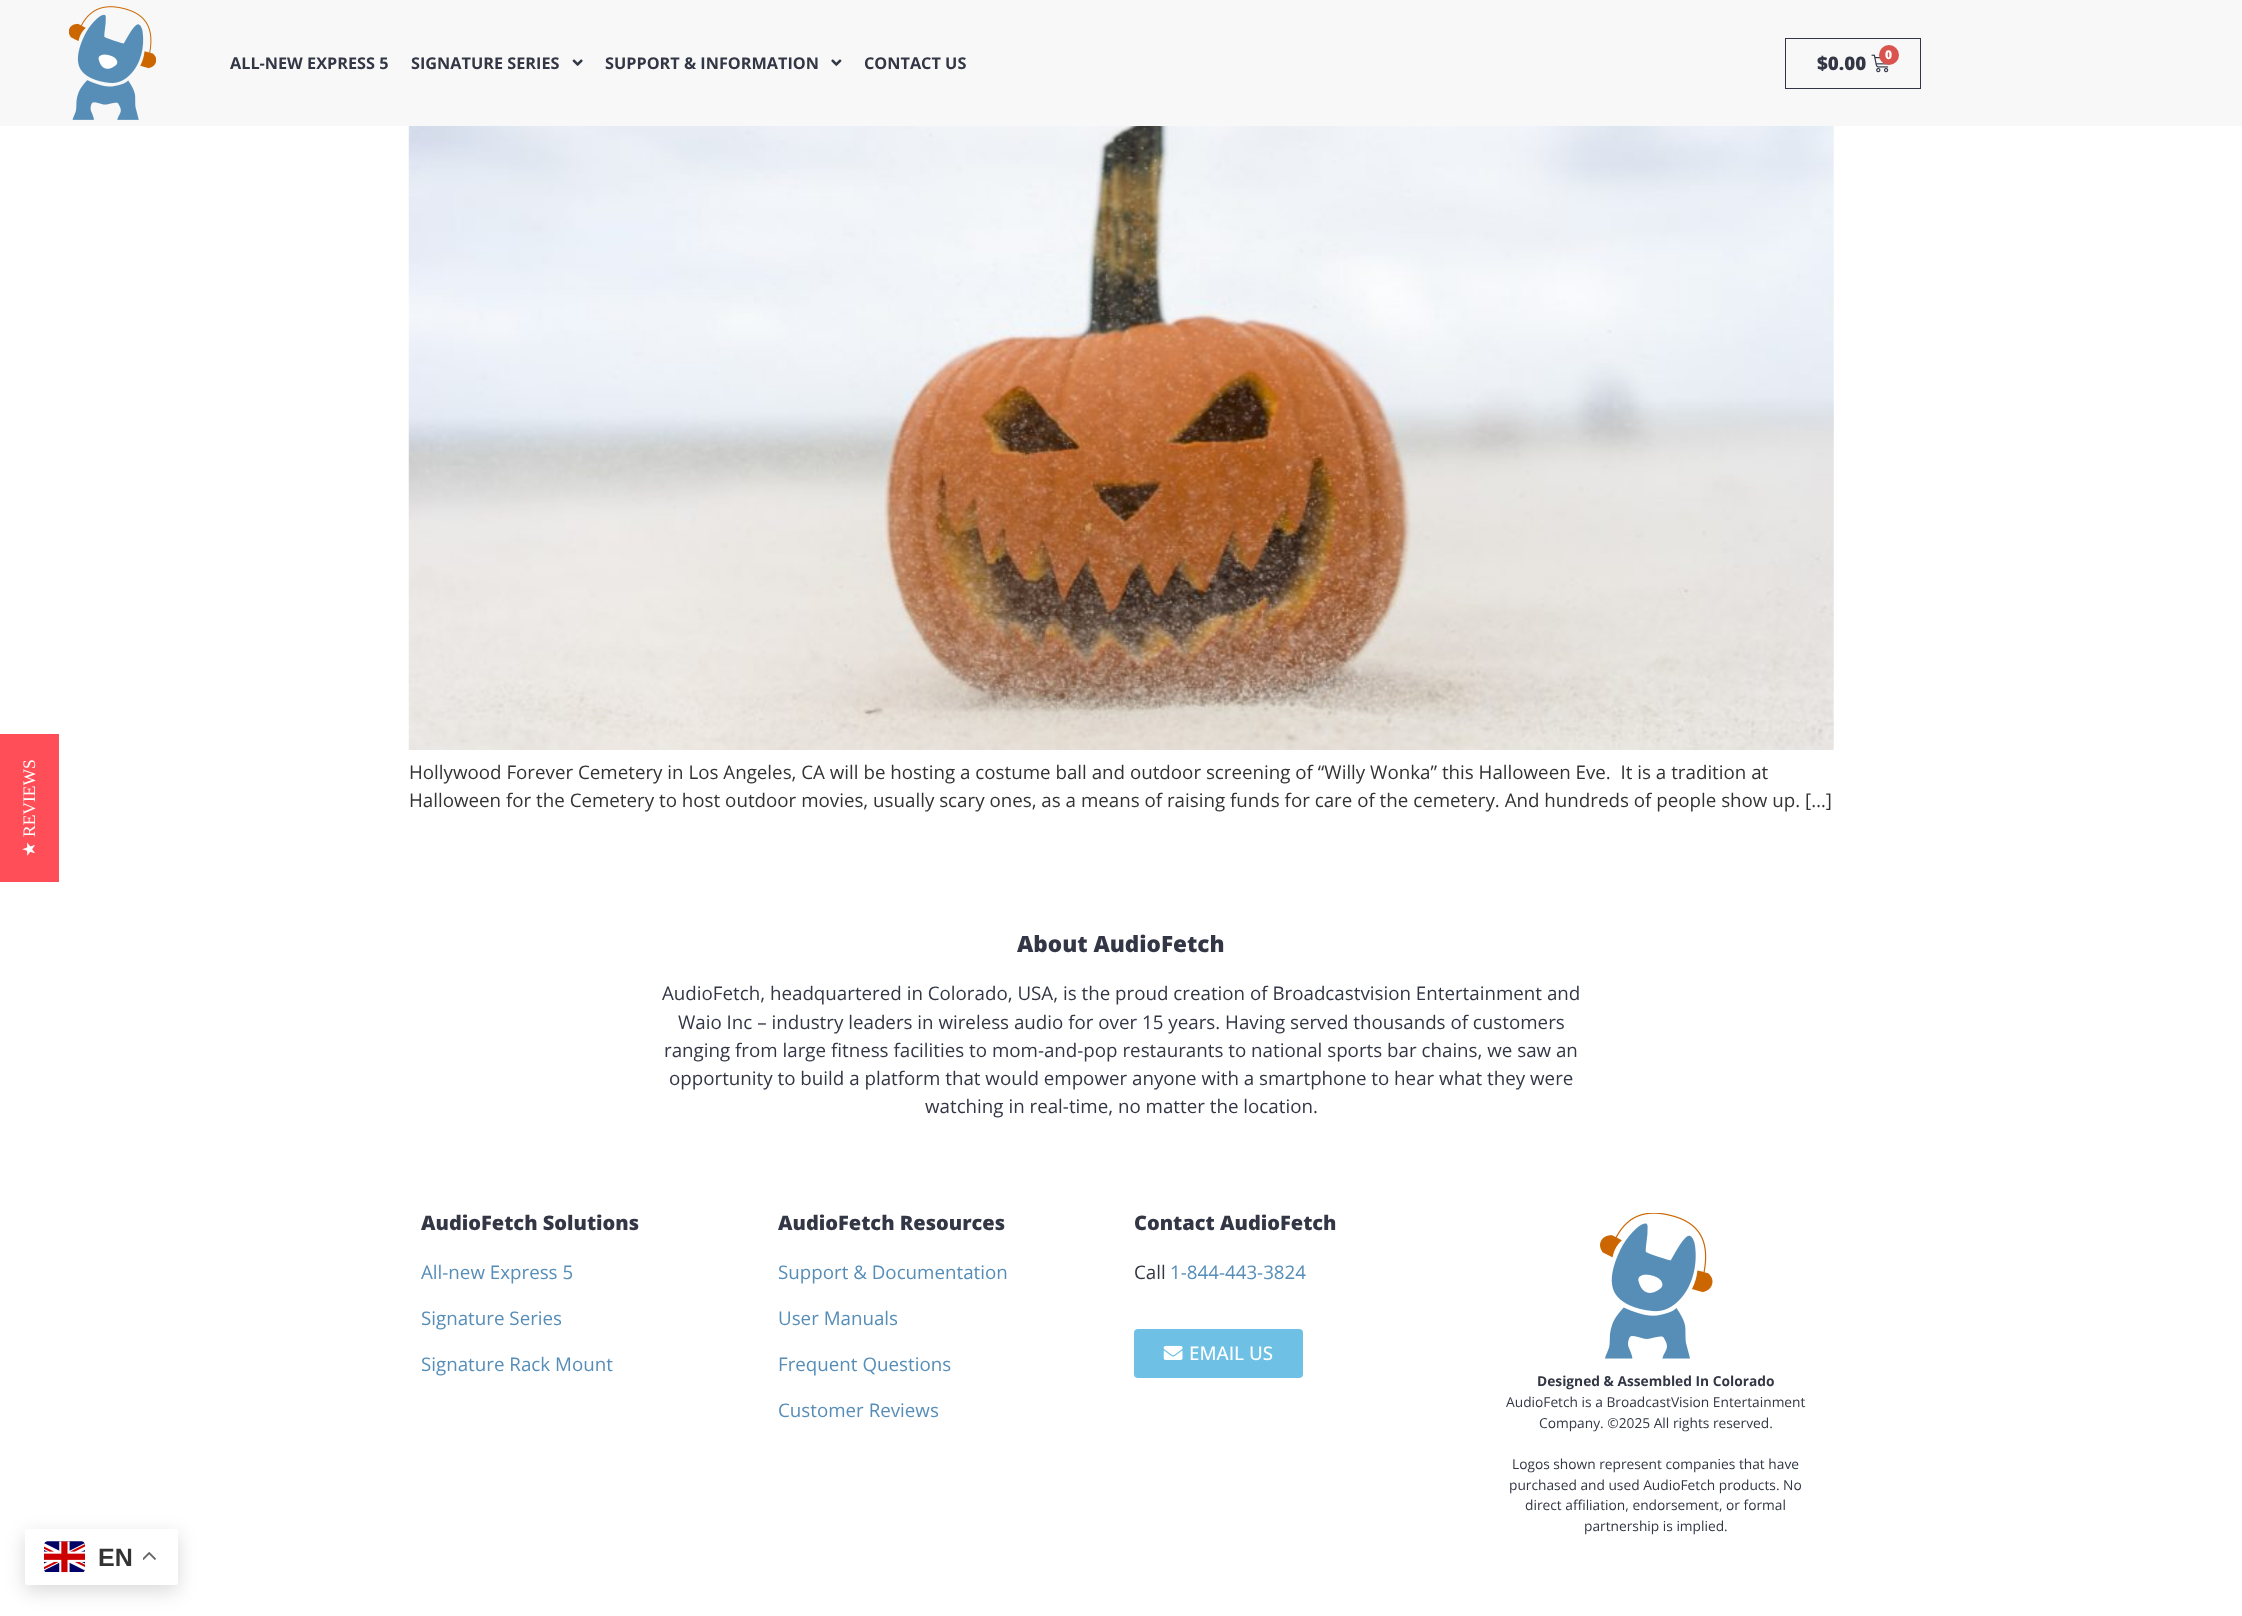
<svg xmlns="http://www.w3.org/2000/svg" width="2242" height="1616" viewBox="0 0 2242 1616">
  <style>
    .t1 { font: bold 16.25px Open Sans; fill: #333745; }
    .t2 { font: 800 18.75px Open Sans; fill: #333745; }
    .t3 { font: 800 12px Open Sans; fill: #fff; }
    .t4 { font: 17.5px Liberation Serif; fill: #fff; }
    .t5 { font: 17.5px DejaVu Sans; fill: #fff; }
    .t6 { font: 18.75px Open Sans; fill: #333; }
    .t7 { font: 800 22.5px Open Sans; fill: #333745; }
    .t8 { font: 18.75px Open Sans; fill: #333745; }
    .t9 { font: 800 20px Open Sans; fill: #333745; }
    .t10 { font: 18.75px Open Sans; fill: #578eb8; }
    .t11 { font: 500 18.75px Open Sans; fill: #fff; }
    .t12 { font: bold 13.75px Open Sans; fill: #333745; }
    .t13 { font: 13.75px Open Sans; fill: #333745; }
    .t14 { font: bold 25px Liberation Sans; fill: #333; }
  </style>
  <rect width="100%" height="100%" fill="#fff"/>
  <rect x="0" y="0" width="2242" height="126" fill="#f8f8f8"/>
  <image x="69" y="6" width="87" height="114" href="images/1.png"/>
  <text x="230" y="69" class="t1">ALL-NEW EXPRESS 5</text>
  <text x="411" y="69" class="t1">SIGNATURE SERIES</text>
  <image x="572" y="59" width="11" height="7" href="images/2.png"/>
  <text x="605" y="69" class="t1">SUPPORT &amp; INFORMATION</text>
  <image x="831" y="59" width="11" height="7" href="images/3.png"/>
  <text x="864" y="69" class="t1">CONTACT US</text>
  <rect x="1785.5" y="38.5" width="135" height="50" fill="none" stroke="#333745"/>
  <text x="1817" y="70" class="t2">$0.00</text>
  <image x="1871" y="54" width="18" height="19" href="images/4.png"/>
  <circle cx="1889" cy="55" r="10" fill="#d9534f"/>
  <text x="1885" y="59" class="t3">0</text>
  <rect x="0" y="734" width="59" height="148" fill="#ff4e57"/>
  <text x="35" y="837" transform="rotate(-90 35 837)" class="t4">REVIEWS</text>
  <text x="35" y="857" transform="rotate(-90 35 857)" class="t5">★</text>
  <image x="408" y="126" width="1426" height="624" href="images/5.png"/>
  <text x="409" y="779" class="t6" xml:space="preserve">Hollywood Forever Cemetery in Los Angeles, CA will be hosting a costume ball and outdoor screening of “Willy Wonka” this Halloween Eve.  It is a tradition at</text>
  <text x="409" y="807" class="t6">Halloween for the Cemetery to host outdoor movies, usually scary ones, as a means of raising funds for care of the cemetery. And hundreds of people show up. […]</text>
  <text x="1017" y="952" class="t7">About AudioFetch</text>
  <text x="662" y="1000" class="t8">AudioFetch, headquartered in Colorado, USA, is the proud creation of Broadcastvision Entertainment and</text>
  <text x="678" y="1029" class="t8">Waio Inc – industry leaders in wireless audio for over 15 years. Having served thousands of customers</text>
  <text x="664" y="1057" class="t8">ranging from large fitness facilities to mom-and-pop restaurants to national sports bar chains, we saw an</text>
  <text x="669" y="1085" class="t8">opportunity to build a platform that would empower anyone with a smartphone to hear what they were</text>
  <text x="925" y="1113" class="t8">watching in real-time, no matter the location.</text>
  <text x="421" y="1230" class="t9">AudioFetch Solutions</text>
  <text x="421" y="1279" class="t10">All-new Express 5</text>
  <text x="421" y="1325" class="t10">Signature Series</text>
  <text x="421" y="1371" class="t10">Signature Rack Mount</text>
  <text x="778" y="1230" class="t9">AudioFetch Resources</text>
  <text x="778" y="1279" class="t10">Support &amp; Documentation</text>
  <text x="778" y="1325" class="t10">User Manuals</text>
  <text x="778" y="1371" class="t10">Frequent Questions</text>
  <text x="778" y="1417" class="t10">Customer Reviews</text>
  <text x="1134" y="1230" class="t9">Contact AudioFetch</text>
  <text x="1134" y="1279" class="t8">Call</text>
  <text x="1170" y="1279" class="t10">1-844-443-3824</text>
  <rect x="1134" y="1329" width="169" height="49" rx="4" fill="#6ec1e4"/>
  <image x="1163" y="1345" width="20" height="15" href="images/6.png"/>
  <text x="1189" y="1360" class="t11">EMAIL US</text>
  <image x="1600" y="1213" width="113" height="146" href="images/7.png"/>
  <text x="1537" y="1386" class="t12">Designed &amp; Assembled In Colorado</text>
  <text x="1506" y="1407" class="t13">AudioFetch is a BroadcastVision Entertainment</text>
  <text x="1539" y="1428" class="t13">Company. ©2025 All rights reserved.</text>
  <text x="1512" y="1469" class="t13">Logos shown represent companies that have</text>
  <text x="1509" y="1490" class="t13">purchased and used AudioFetch products. No</text>
  <text x="1525" y="1510" class="t13">direct affiliation, endorsement, or formal</text>
  <text x="1584" y="1531" class="t13">partnership is implied.</text>
  <rect x="25" y="1535" width="153" height="56" rx="2.5" fill="#00000026" filter="blur(9.5px)"/>
  <rect x="25" y="1529" width="153" height="56" rx="2.5" fill="#fff"/>
  <image x="44" y="1541" width="41" height="32" href="images/8.png"/>
  <text x="98" y="1566" class="t14">EN</text>
  <image x="143" y="1552" width="13" height="8" href="images/9.png"/>
</svg>
